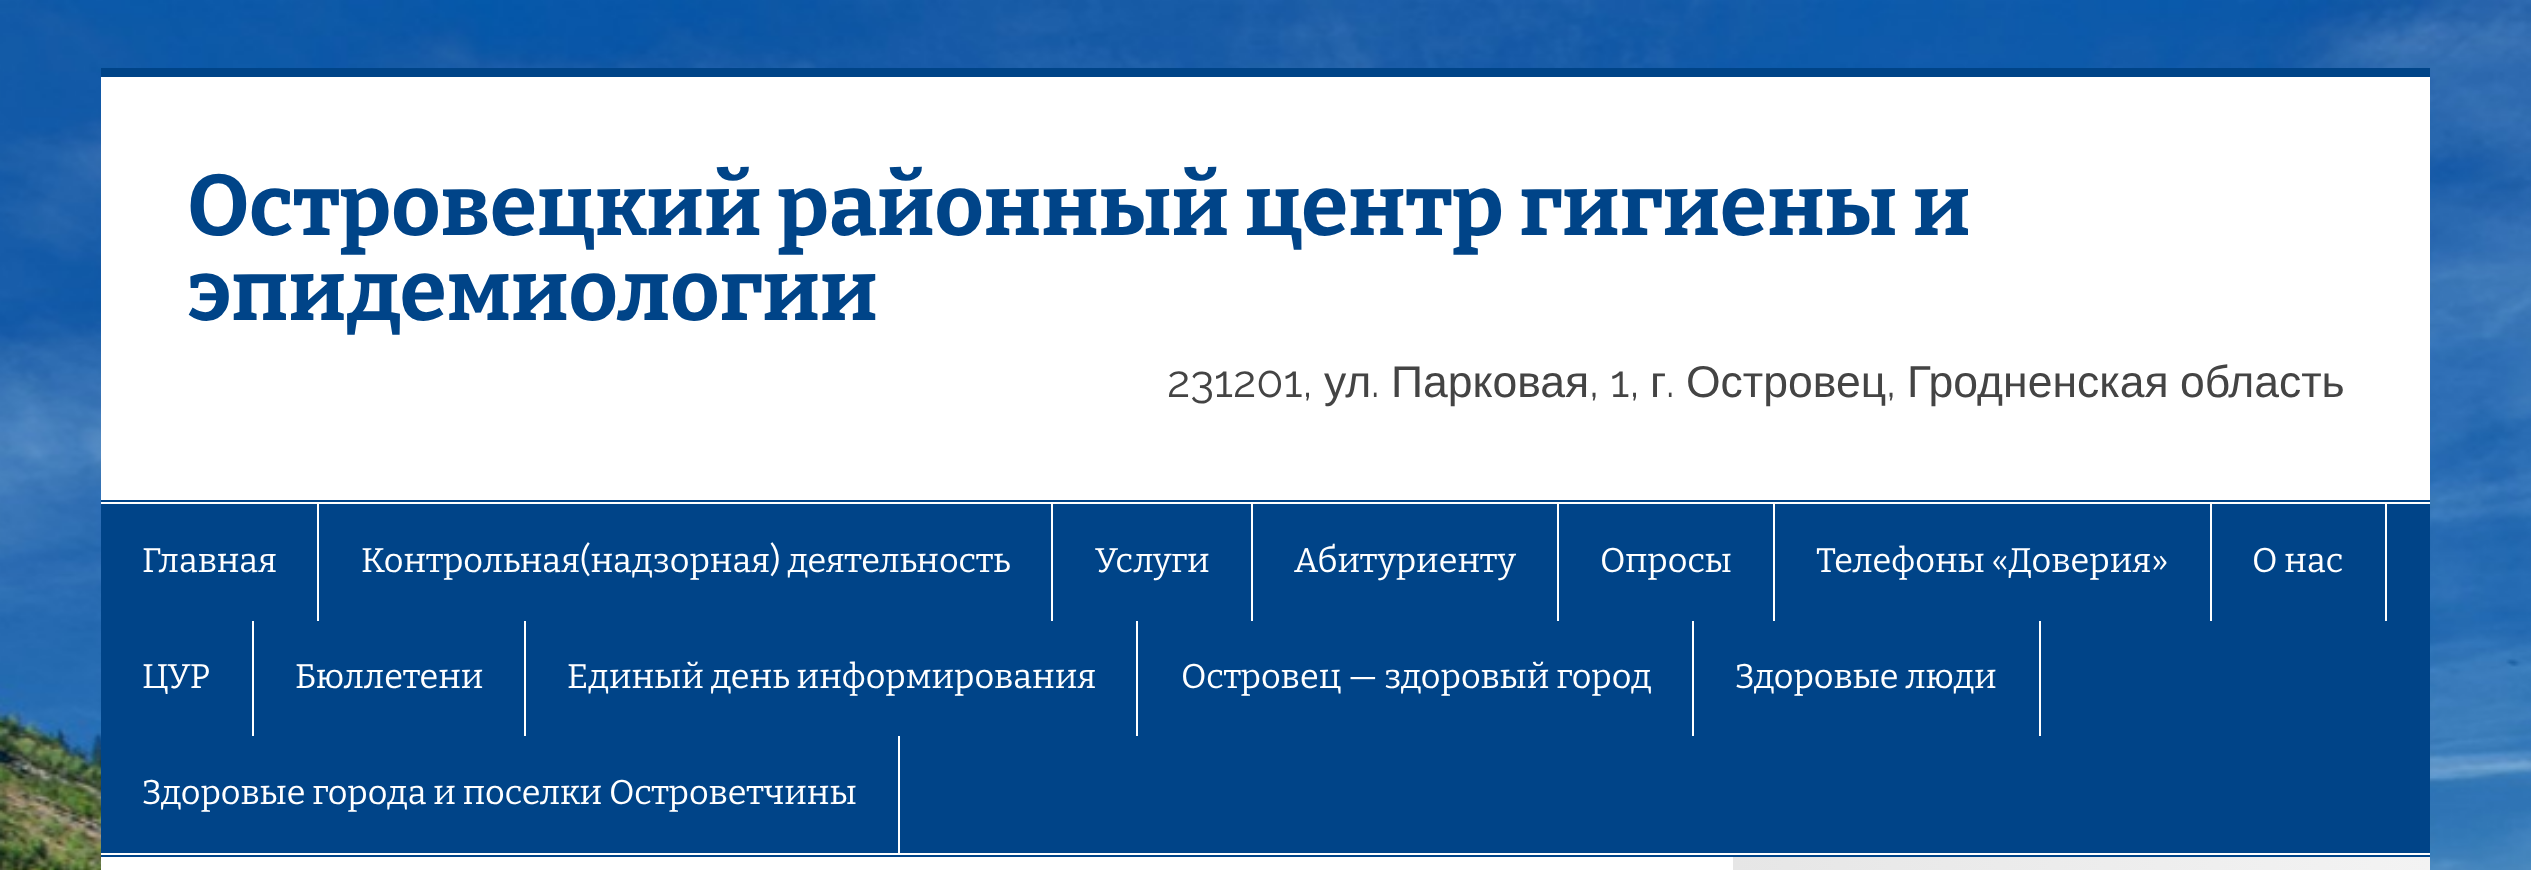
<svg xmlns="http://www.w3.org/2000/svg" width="2531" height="870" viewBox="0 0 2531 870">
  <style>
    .t1 { font: bold 85.5px Bitter; fill: #048; }
    .t2 { font: 44.5px Raleway; fill: #444; }
    .t3 { font: 44.5px Liberation Sans; fill: #444; }
    .t4 { font: 34.2px Bitter; fill: #fff; }
  </style>
  <defs>
    <linearGradient id="g1" gradientUnits="userSpaceOnUse" x1="1733" y1="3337" x2="2430" y2="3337"><stop offset="0" stop-color="#e6e6e6"/><stop offset="1" stop-color="#f3f3f3"/></linearGradient>
  </defs>
  <rect width="100%" height="100%" fill="#fff"/>
  <image x="0" y="0" width="2531" height="870" href="images/1.png"/>
  <rect x="101" y="77" width="2329" height="793" fill="#fff"/>
  <rect x="101" y="68" width="2329" height="9" fill="#048"/>
  <text x="187" y="235" class="t1">Островецкий районный центр гигиены и</text>
  <text x="187" y="320" class="t1">эпидемиологии</text>
  <text x="1167" y="397" class="t2">231201,</text>
  <text x="1324" y="397" class="t3">ул</text>
  <text x="1371" y="397" class="t2">.</text>
  <text x="1391" y="397" class="t3">Парковая</text>
  <text x="1589" y="397" class="t2">, 1,</text>
  <text x="1650" y="397" class="t3">г</text>
  <text x="1666" y="397" class="t2">.</text>
  <text x="1686" y="397" class="t3">Островец</text>
  <text x="1886" y="397" class="t2">,</text>
  <text x="1907" y="397" class="t3">Гродненская</text>
  <text x="2180" y="397" class="t3">область</text>
  <rect x="101" y="500" width="2329" height="2" fill="#048"/>
  <rect x="101" y="855" width="2329" height="2" fill="#048"/>
  <rect x="101" y="504" width="2329" height="349" fill="#048"/>
  <rect x="317" y="504" width="2" height="117" fill="#fff"/>
  <text x="142" y="572" class="t4">Главная</text>
  <rect x="1051" y="504" width="2" height="117" fill="#fff"/>
  <text x="361" y="572" class="t4">Контрольная(надзорная) деятельность</text>
  <rect x="1251" y="504" width="2" height="117" fill="#fff"/>
  <text x="1095" y="572" class="t4">Услуги</text>
  <rect x="1557" y="504" width="2" height="117" fill="#fff"/>
  <text x="1294" y="572" class="t4">Абитуриенту</text>
  <rect x="1773" y="504" width="2" height="117" fill="#fff"/>
  <text x="1600" y="572" class="t4">Опросы</text>
  <rect x="2210" y="504" width="2" height="117" fill="#fff"/>
  <text x="1816" y="572" class="t4">Телефоны «Доверия»</text>
  <rect x="2385" y="504" width="2" height="117" fill="#fff"/>
  <text x="2252" y="572" class="t4">О нас</text>
  <rect x="252" y="621" width="2" height="115" fill="#fff"/>
  <text x="142" y="688" class="t4">ЦУР</text>
  <rect x="524" y="621" width="2" height="115" fill="#fff"/>
  <text x="295" y="688" class="t4">Бюллетени</text>
  <rect x="1136" y="621" width="2" height="115" fill="#fff"/>
  <text x="567" y="688" class="t4">Единый день информирования</text>
  <rect x="1692" y="621" width="2" height="115" fill="#fff"/>
  <text x="1181" y="688" class="t4">Островец — здоровый город</text>
  <rect x="2039" y="621" width="2" height="115" fill="#fff"/>
  <text x="1735" y="688" class="t4">Здоровые люди</text>
  <rect x="898" y="736" width="2" height="117" fill="#fff"/>
  <text x="142" y="804" class="t4">Здоровые города и поселки Островетчины</text>
  <rect x="1733" y="857" width="697" height="13" fill="url(#g1)"/>
</svg>
